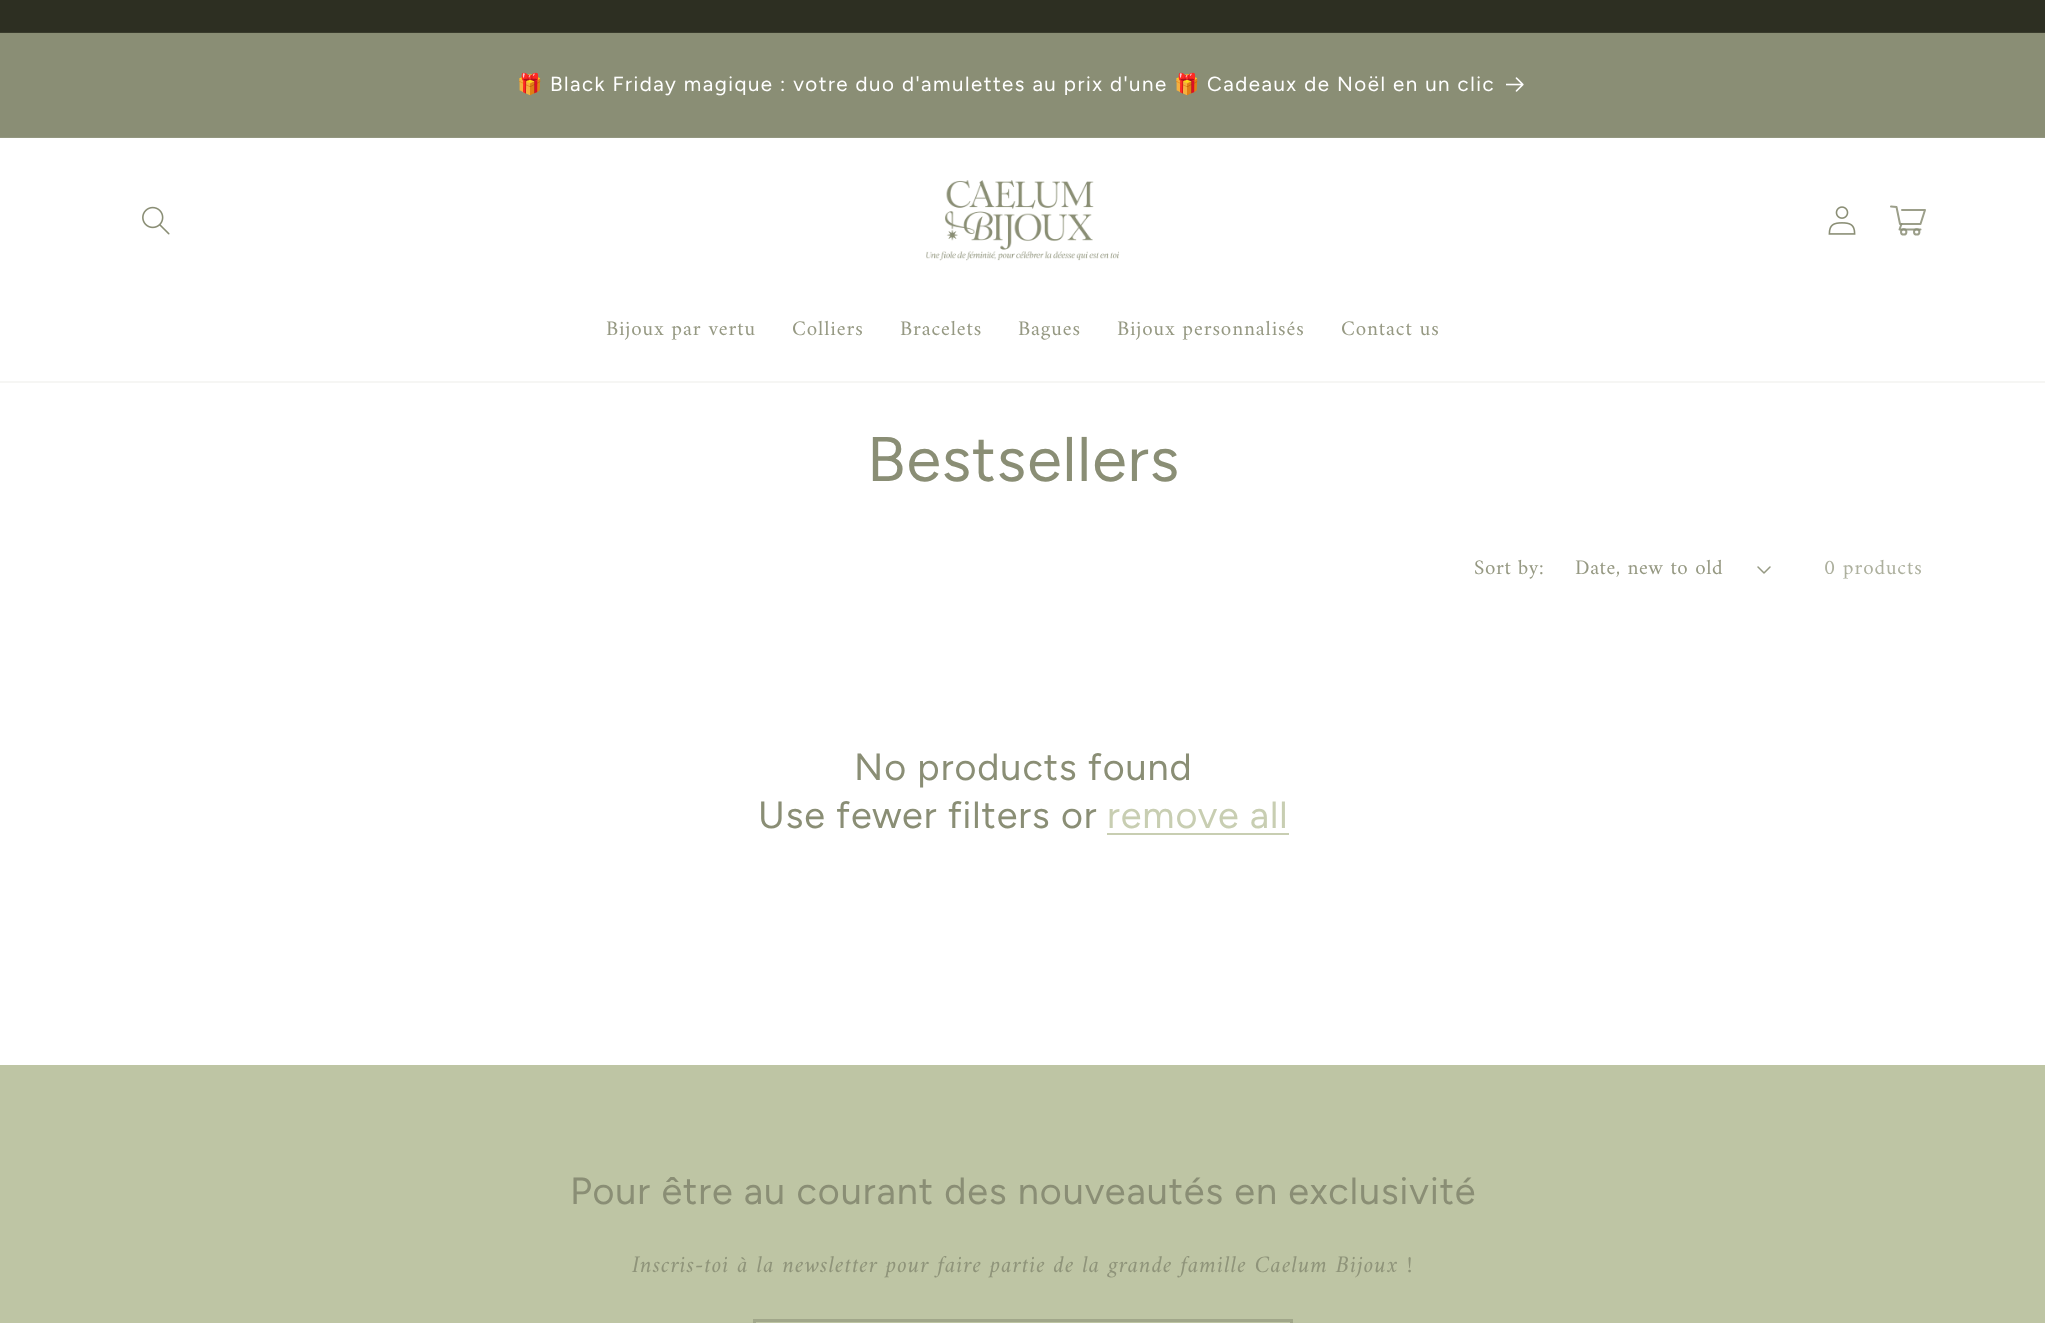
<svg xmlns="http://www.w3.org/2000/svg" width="2045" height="1323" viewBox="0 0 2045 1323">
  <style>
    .t1 { font: 20.5px Noto Color Emoji; letter-spacing: 1.5px; fill: #fff; }
    .t2 { font: 20.5px Figtree; letter-spacing: 1.5px; fill: #fff; }
    .t3 { font: 21px Amiri; letter-spacing: 0.9px; fill: #969983; }
    .t4 { font: 63px Figtree; letter-spacing: 0.95px; fill: #8a8e75; }
    .t5 { font: 21px Amiri; letter-spacing: 0.6px; fill: #969983; }
    .t6 { font: 21px Amiri; letter-spacing: 0.9px; fill: #adb09e; }
    .t7 { font: 37.8px Figtree; letter-spacing: 0.95px; fill: #8a8e75; }
    .t8 { font: 37.8px Figtree; letter-spacing: 0.95px; fill: #c8ceb2; }
    .t9 { font: italic 24px Amiri; letter-spacing: 0.9px; fill: #8f947a; }
  </style>
  <rect width="100%" height="100%" fill="#fff"/>
  <rect x="0" y="0" width="2045" height="32" fill="#2d2f22"/>
  <rect x="0" y="32" width="2045" height="1" fill="#393b2c"/>
  <rect x="0" y="33" width="2045" height="104" fill="#8a8e75"/>
  <rect x="0" y="137" width="2045" height="1" fill="#939780"/>
  <text x="517" y="91" class="t1">🎁</text>
  <text x="550" y="91" class="t2">Black Friday magique : votre duo d'amulettes au prix d'une</text>
  <text x="1174" y="91" class="t1">🎁</text>
  <text x="1207" y="91" class="t2">Cadeaux de Noël en un clic</text>
  <image x="1506" y="77" width="18" height="15" href="images/1.png"/>
  <rect x="0" y="381" width="2045" height="2" fill="#f6f6f4"/>
  <image x="142" y="206" width="28" height="29" href="images/2.png"/>
  <image x="926" y="180" width="193" height="81" href="images/3.png"/>
  <image x="1828" y="206" width="28" height="29" href="images/4.png"/>
  <path d="M1891 206.5L1896.5 207L1900 224H1920.5L1925 210H1902" fill="none" stroke="#9c9f8a" stroke-width="2" stroke-linecap="round" stroke-linejoin="round"/>
  <circle cx="1903.7" cy="231.9" r="2.7" fill="none" stroke="#9c9f8a" stroke-width="2"/>
  <circle cx="1916.7" cy="231.9" r="2.7" fill="none" stroke="#9c9f8a" stroke-width="2"/>
  <path d="M1920.5 229.5H1899.5L1901.5 224" fill="none" stroke="#8a8e75d9" stroke-width="2" stroke-linecap="round" stroke-linejoin="round"/>
  <text x="606" y="335" class="t3">Bijoux par vertu</text>
  <text x="792" y="335" class="t3">Colliers</text>
  <text x="900" y="335" class="t3">Bracelets</text>
  <text x="1018" y="335" class="t3">Bagues</text>
  <text x="1117" y="335" class="t3">Bijoux personnalisés</text>
  <text x="1341" y="335" class="t3">Contact us</text>
  <text x="867" y="481" class="t4">Bestsellers</text>
  <text x="1474" y="574" class="t5">Sort by:</text>
  <text x="1575" y="574" class="t5">Date, new to old</text>
  <image x="1757" y="566" width="14" height="8" href="images/5.png"/>
  <text x="1824" y="574" class="t6">0 products</text>
  <text x="854" y="780" class="t7">No products found</text>
  <text x="758" y="828" class="t7">Use fewer filters or</text>
  <text x="1107" y="828" class="t8">remove all</text>
  <rect x="1107" y="833" width="182" height="2" fill="#c8ceb2"/>
  <rect x="0" y="1065" width="2045" height="258" fill="#bec5a4"/>
  <text x="570" y="1204" class="t7">Pour être au courant des nouveautés en exclusivité</text>
  <text x="632" y="1272" class="t9">Inscris-toi à la newsletter pour faire partie de la grande famille Caelum Bijoux !</text>
  <rect x="754.5" y="1320.5" width="537" height="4" fill="none" stroke="#a1a78a" stroke-width="3"/>
</svg>
